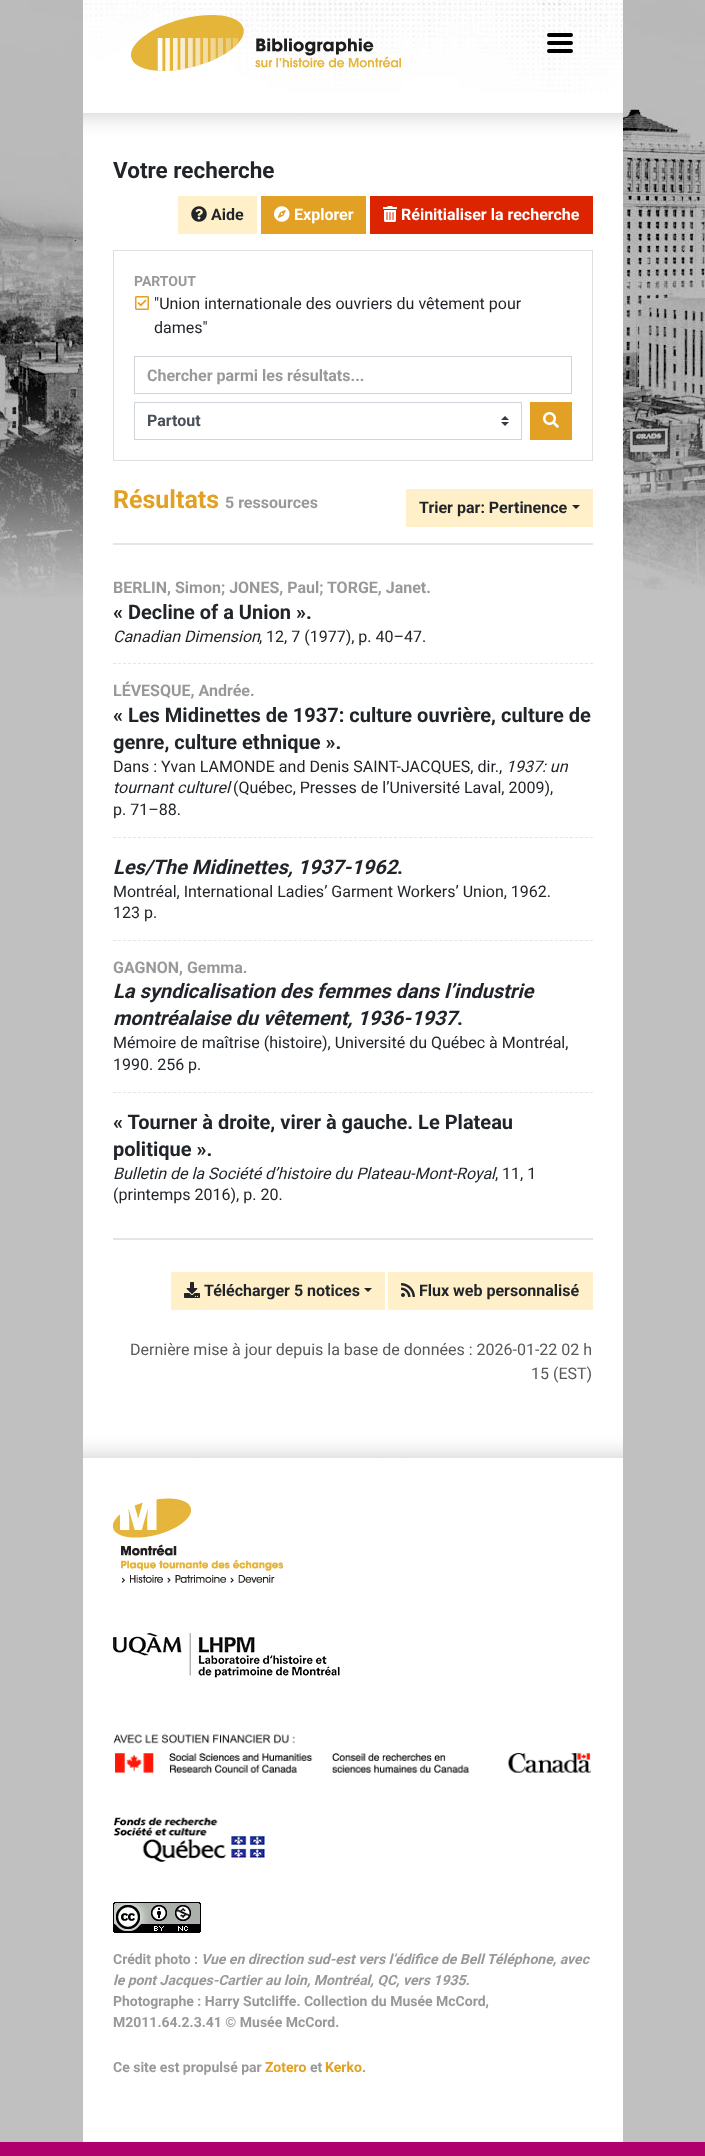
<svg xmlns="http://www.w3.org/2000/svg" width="705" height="2156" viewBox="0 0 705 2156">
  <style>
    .t1 { font: bold 22.5px Roboto; fill: #212529; }
    .t2 { font: bold 16px Roboto; fill: #212529; }
    .t3 { font: bold 16px Roboto; fill: #fff; }
    .t4 { font: bold 14px Roboto; fill: #999; }
    .t5 { font: 16px Roboto; fill: #212529; }
    .t6 { font: bold 16px Roboto; fill: #999; }
    .t7 { font: bold 16px Roboto; fill: #495057; }
    .t8 { font: bold 25px Roboto; fill: #e2a124; }
    .t9 { font: bold 20px Roboto; fill: #212529; }
    .t10 { font: italic 16px Roboto; fill: #212529; }
    .t11 { font: italic bold 20px Roboto; fill: #212529; }
    .t12 { font: 16px Roboto; fill: #585858; }
    .t13 { font: italic bold 14px Roboto; fill: #999; }
    .t14 { font: bold 14px Roboto; fill: #e2a124; }
  </style>
  <rect width="100%" height="100%" fill="#c0c0c0"/>
  <rect x="83" y="0" width="540" height="2142" fill="#fff"/>
  <image x="0" y="0" width="83" height="597" href="images/1.png"/>
  <image x="84" y="0" width="539" height="93" href="images/2.png"/>
  <image x="131" y="15" width="270" height="56" href="images/3.png"/>
  <path d="M549 35H571M549 43H571M549 51H571" fill="none" stroke="#000" stroke-width="4" stroke-linecap="round"/>
  <image x="623" y="0" width="82" height="590" href="images/4.png"/>
  <image x="83" y="113" width="540" height="1345" href="images/5.png"/>
  <text x="113" y="178" class="t1">Votre recherche</text>
  <rect x="178" y="196" width="79" height="38" fill="#fff0c9"/>
  <image x="191" y="206" width="16" height="16" href="images/6.png"/>
  <text x="211" y="220" class="t2">Aide</text>
  <rect x="261" y="196" width="105" height="38" fill="#e2a124"/>
  <image x="274" y="206" width="16" height="16" href="images/7.png"/>
  <text x="294" y="220" class="t3">Explorer</text>
  <rect x="370" y="196" width="223" height="38" fill="#dc2401"/>
  <image x="383" y="206" width="14" height="16" href="images/8.png"/>
  <text x="401" y="220" class="t3">Réinitialiser la recherche</text>
  <rect x="113.5" y="250.5" width="479" height="210" fill="none" stroke="#dfdfdf"/>
  <text x="134" y="286" class="t4">PARTOUT</text>
  <image x="135" y="296" width="14" height="14" href="images/9.png"/>
  <text x="154" y="309" class="t5">"Union internationale des ouvriers du vêtement pour</text>
  <text x="154" y="333" class="t5">dames"</text>
  <rect x="134.5" y="356.5" width="437" height="37" fill="none" stroke="#ced4da"/>
  <text x="147" y="381" class="t6">Chercher parmi les résultats...</text>
  <image x="501" y="416" width="8" height="10" href="images/10.png"/>
  <rect x="134.5" y="402.5" width="387" height="37" fill="none" stroke="#ced4da"/>
  <text x="147" y="426" class="t7">Partout</text>
  <rect x="530" y="402" width="42" height="38" fill="#e2a124"/>
  <image x="543" y="412" width="16" height="16" href="images/11.png"/>
  <text x="113" y="508" class="t8">Résultats</text>
  <text x="225" y="508" class="t6">5 ressources</text>
  <rect x="406" y="489" width="187" height="38" fill="#fff0c9"/>
  <text x="419" y="513" class="t2">Trier par: Pertinence</text>
  <path d="M572 505H580L576 509Z" fill="#212529"/>
  <rect x="113" y="543" width="480" height="2" fill="#e5e5e5"/>
  <rect x="113" y="1238" width="480" height="2" fill="#e5e5e5"/>
  <text x="113" y="593" class="t6">BERLIN, Simon; JONES, Paul; TORGE, Janet.</text>
  <text x="113" y="619" class="t9">« Decline of a Union ».</text>
  <text x="113" y="642" class="t10">Canadian Dimension</text>
  <text x="259" y="642" class="t5">, 12, 7 (1977), p. 40–47.</text>
  <path d="M113 663.5H593" fill="none" stroke="#e5e5e5" stroke-dasharray="3 2.02"/>
  <text x="113" y="696" class="t6">LÉVESQUE, Andrée.</text>
  <text x="113" y="722" class="t9">« Les Midinettes de 1937: culture ouvrière, culture de</text>
  <text x="113" y="749" class="t9">genre, culture ethnique ».</text>
  <text x="113" y="772" class="t5">Dans : Yvan LAMONDE and Denis SAINT-JACQUES, dir.,</text>
  <text x="506" y="772" class="t10">1937: un</text>
  <text x="113" y="793" class="t10">tournant culturel</text>
  <text x="233" y="793" class="t5">(Québec, Presses de l’Université Laval, 2009),</text>
  <text x="113" y="815" class="t5">p. 71–88.</text>
  <path d="M113 837.5H593" fill="none" stroke="#e5e5e5" stroke-dasharray="3 2.02"/>
  <text x="113" y="874" class="t11">Les/The Midinettes, 1937-1962</text>
  <text x="397" y="874" class="t9">.</text>
  <text x="113" y="897" class="t5">Montréal, International Ladies’ Garment Workers’ Union, 1962.</text>
  <text x="113" y="918" class="t5">123 p.</text>
  <path d="M113 940.5H593" fill="none" stroke="#e5e5e5" stroke-dasharray="3 2.02"/>
  <text x="113" y="973" class="t6">GAGNON, Gemma.</text>
  <text x="113" y="998" class="t11">La syndicalisation des femmes dans l’industrie</text>
  <text x="113" y="1025" class="t11">montréalaise du vêtement, 1936-1937</text>
  <text x="457" y="1025" class="t9">.</text>
  <text x="113" y="1048" class="t5">Mémoire de maîtrise (histoire), Université du Québec à Montréal,</text>
  <text x="113" y="1070" class="t5">1990. 256 p.</text>
  <path d="M113 1092.5H593" fill="none" stroke="#e5e5e5" stroke-dasharray="3 2.02"/>
  <text x="113" y="1129" class="t9">« Tourner à droite, virer à gauche. Le Plateau</text>
  <text x="113" y="1156" class="t9">politique ».</text>
  <text x="113" y="1179" class="t10">Bulletin de la Société d’histoire du Plateau-Mont-Royal</text>
  <text x="495" y="1179" class="t5">, 11, 1</text>
  <text x="113" y="1200" class="t5">(printemps 2016), p. 20.</text>
  <rect x="171" y="1272" width="214" height="38" fill="#fff0c9"/>
  <image x="184" y="1282" width="16" height="16" href="images/12.png"/>
  <text x="204" y="1296" class="t2">Télécharger 5 notices</text>
  <path d="M364 1288H372L368 1292Z" fill="#212529"/>
  <rect x="388" y="1272" width="205" height="38" fill="#fff0c9"/>
  <image x="401" y="1283" width="14" height="14" href="images/13.png"/>
  <text x="419" y="1296" class="t2">Flux web personnalisé</text>
  <text x="130" y="1355" class="t12">Dernière mise à jour depuis la base de données : 2026-01-22 02 h</text>
  <text x="531" y="1379" class="t12">15 (EST)</text>
  <image x="113" y="1498" width="171" height="85" href="images/14.png"/>
  <image x="113" y="1633" width="227" height="45" href="images/15.png"/>
  <image x="113" y="1734" width="479" height="39" href="images/16.png"/>
  <image x="113" y="1817" width="152" height="45" href="images/17.png"/>
  <image x="113" y="1902" width="88" height="31" href="images/18.png"/>
  <text x="113" y="1964" class="t4">Crédit photo :</text>
  <text x="201" y="1964" class="t13">Vue en direction sud-est vers l’édifice de Bell Téléphone, avec</text>
  <text x="113" y="1985" class="t13">le pont Jacques-Cartier au loin, Montréal, QC, vers 1935.</text>
  <text x="113" y="2006" class="t4">Photographe : Harry Sutcliffe. Collection du Musée McCord,</text>
  <text x="113" y="2027" class="t4">M2011.64.2.3.41 © Musée McCord.</text>
  <text x="113" y="2072" class="t4">Ce site est propulsé par</text>
  <text x="265" y="2072" class="t14">Zotero</text>
  <text x="310" y="2072" class="t4">et</text>
  <text x="325" y="2072" class="t14">Kerko</text>
  <text x="362" y="2072" class="t4">.</text>
  <rect x="0" y="2142" width="705" height="14" fill="#af006e"/>
</svg>
